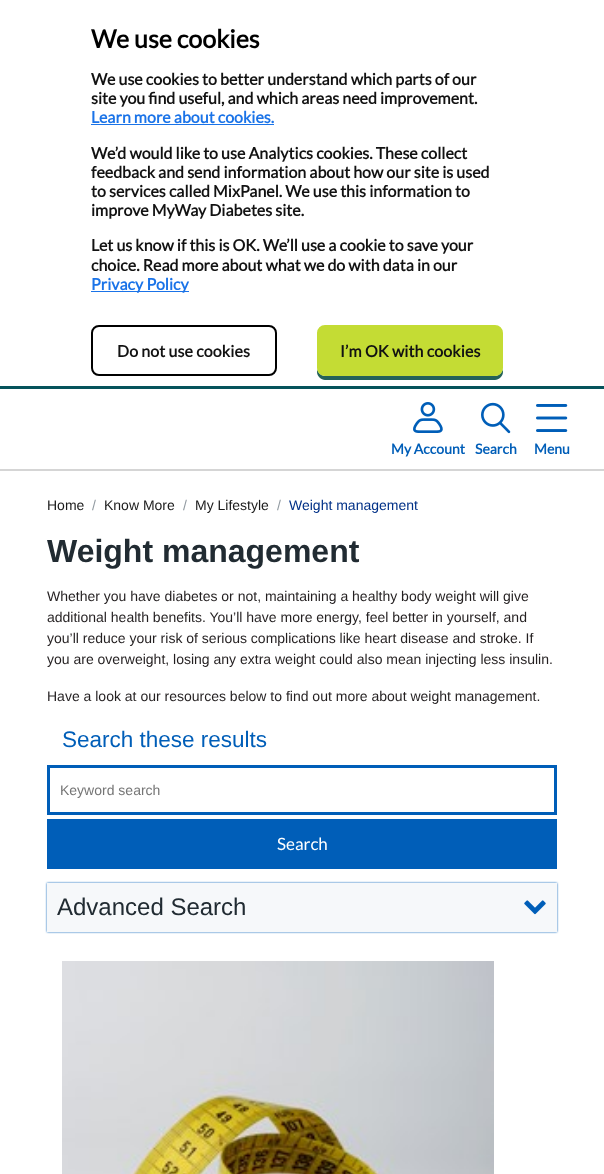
<svg xmlns="http://www.w3.org/2000/svg" width="604" height="1174" viewBox="0 0 604 1174">
  <style>
    .t1 { font: bold 25px Lato; fill: #000; }
    .t2 { font: bold 16px Lato; fill: #121212; }
    .t3 { font: bold 16px Lato; fill: #1a73e8; }
    .t4 { font: bold 16px Lato; letter-spacing: 0.1px; fill: #121212; }
    .t5 { font: bold 14px Lato; fill: #005eb8; }
    .t6 { font: 14px Liberation Sans; fill: #1a1a1a; }
    .t7 { font: 14px Liberation Sans; fill: #919aa1; }
    .t8 { font: 14px Liberation Sans; fill: #003087; }
    .t9 { font: bold 32px Liberation Sans; fill: #212b32; }
    .t10 { font: 14px Liberation Sans; fill: #231f20; }
    .t11 { font: 22.5px Liberation Sans; fill: #005eb8; }
    .t12 { font: 14px Liberation Sans; fill: #757575; }
    .t13 { font: 17px Lato; fill: #fff; }
    .t14 { font: 24px Liberation Sans; fill: #212b32; }
  </style>
  <rect width="100%" height="100%" fill="#fff"/>
  <rect x="0" y="386" width="604" height="3" fill="#05535b"/>
  <text x="91" y="48" class="t1">We use cookies</text>
  <text x="91" y="85" class="t2">We use cookies to better understand which parts of our</text>
  <text x="91" y="104" class="t2">site you find useful, and which areas need improvement.</text>
  <text x="91" y="123" class="t3">Learn more about cookies.</text>
  <rect x="91" y="124" width="183" height="1" fill="#1a73e8"/>
  <text x="91" y="159" class="t2">We’d would like to use Analytics cookies. These collect</text>
  <text x="91" y="178" class="t2">feedback and send information about how our site is used</text>
  <text x="91" y="197" class="t2">to services called MixPanel. We use this information to</text>
  <text x="91" y="216" class="t2">improve MyWay Diabetes site.</text>
  <text x="91" y="251" class="t2">Let us know if this is OK. We’ll use a cookie to save your</text>
  <text x="91" y="271" class="t2">choice. Read more about what we do with data in our</text>
  <rect x="91" y="291" width="98" height="1" fill="#1a73e8"/>
  <text x="91" y="290" class="t3">Privacy Policy</text>
  <rect x="92" y="326" width="184" height="49" rx="7" fill="none" stroke="#000" stroke-width="2"/>
  <text x="117" y="357" class="t4">Do not use cookies</text>
  <path d="M317 368V372C317 376 321 380 325 380H495C499 380 503 376 503 372V368C503 372 499 376 495 376H325C321 376 317 372 317 368Z" fill="#246259"/>
  <rect x="318" y="326" width="184" height="49" rx="7" fill="#c4dc34" stroke="#c4dc34" stroke-width="2"/>
  <text x="340" y="357" class="t4">I’m OK with cookies</text>
  <rect x="0" y="469" width="604" height="2" fill="#d5d5d5"/>
  <image x="413" y="402" width="30" height="31" href="images/1.png"/>
  <text x="391" y="454" class="t5">My Account</text>
  <image x="481" y="402" width="30" height="32" href="images/2.png"/>
  <text x="475" y="454" class="t5">Search</text>
  <image x="536" y="404" width="32" height="28" href="images/3.png"/>
  <text x="534" y="454" class="t5">Menu</text>
  <text x="47" y="510" class="t6">Home</text>
  <text x="92" y="510" class="t7">/</text>
  <text x="104" y="510" class="t6">Know More</text>
  <text x="183" y="510" class="t7">/</text>
  <text x="195" y="510" class="t6">My Lifestyle</text>
  <text x="277" y="510" class="t7">/</text>
  <text x="289" y="510" class="t8">Weight management</text>
  <text x="47" y="562" class="t9">Weight management</text>
  <text x="47" y="601" class="t10">Whether you have diabetes or not, maintaining a healthy body weight will give</text>
  <text x="47" y="622" class="t10">additional health benefits. You’ll have more energy, feel better in yourself, and</text>
  <text x="47" y="643" class="t10">you’ll reduce your risk of serious complications like heart disease and stroke. If</text>
  <text x="47" y="664" class="t10">you are overweight, losing any extra weight could also mean injecting less insulin.</text>
  <text x="47" y="701" class="t10">Have a look at our resources below to find out more about weight management.</text>
  <text x="62" y="747" class="t11">Search these results</text>
  <rect x="48.5" y="766.5" width="507" height="47" fill="none" stroke="#005eb8" stroke-width="3"/>
  <text x="60" y="795" class="t12">Keyword search</text>
  <rect x="47" y="819" width="510" height="50" fill="#005eb8"/>
  <text x="277" y="850" class="t13">Search</text>
  <rect x="47" y="883" width="510" height="49" fill="#005eb8" filter="blur(1px)"/>
  <rect x="47" y="883" width="510" height="49" fill="#f6f8fa"/>
  <text x="57" y="915" class="t14">Advanced Search</text>
  <image x="524" y="900" width="22" height="15" href="images/4.png"/>
  <image x="62" y="961" width="432" height="213" href="images/5.png"/>
</svg>
